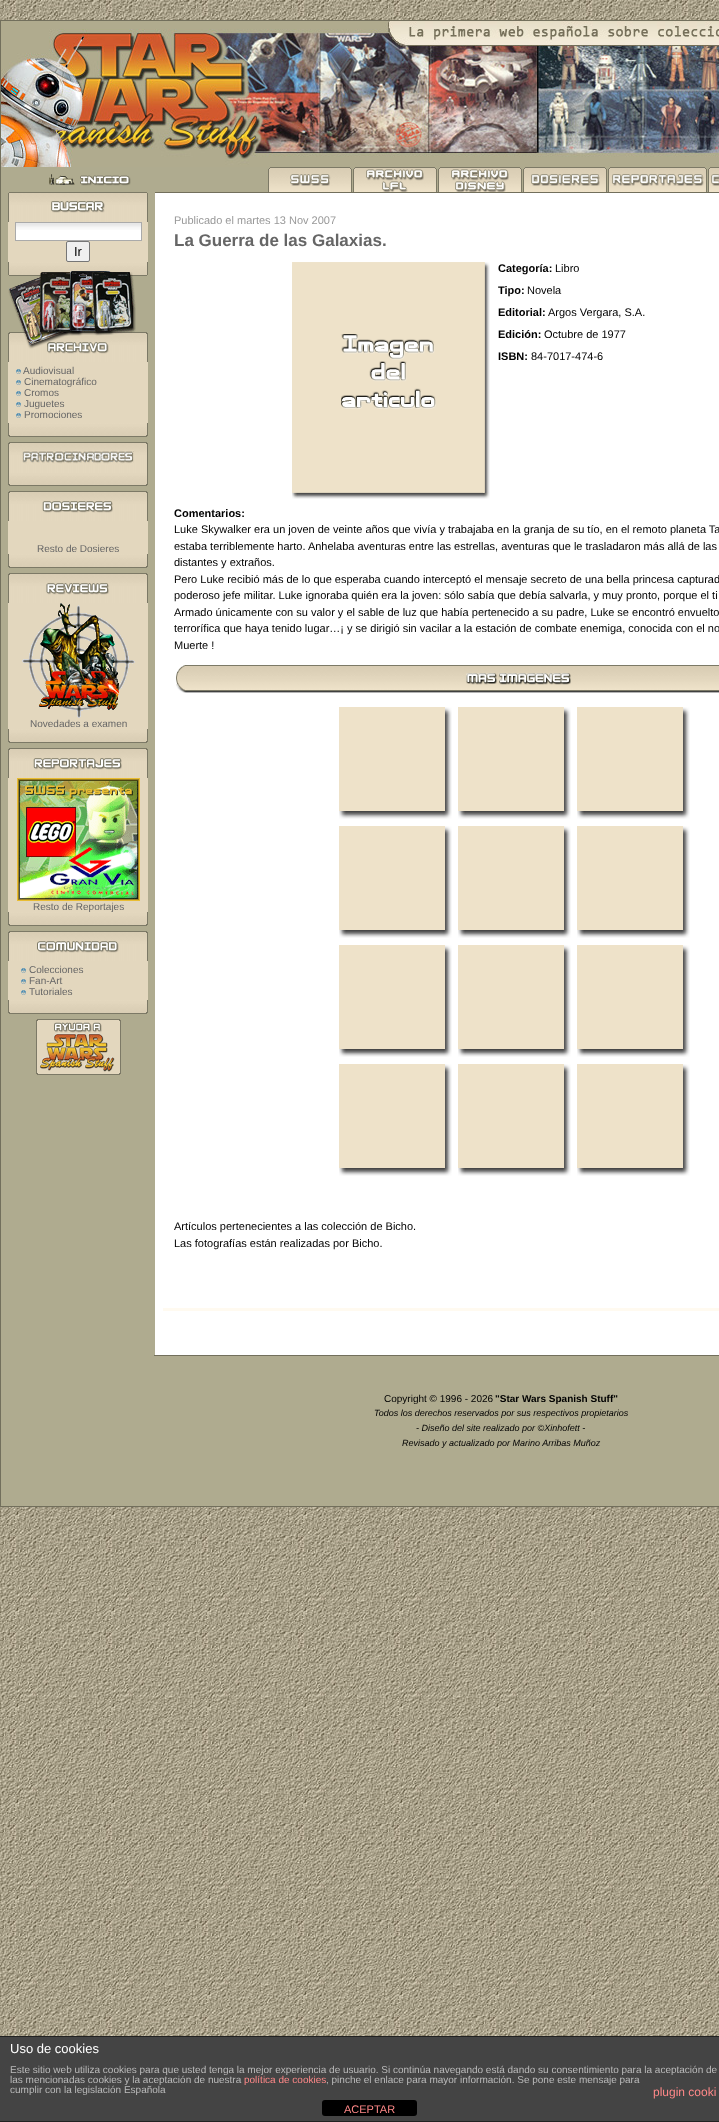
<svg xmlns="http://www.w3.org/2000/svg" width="719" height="2122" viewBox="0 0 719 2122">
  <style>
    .t1 { font: 13px Liberation Sans; fill: #000; }
    .t2 { font: 10px Liberation Sans; fill: #666; }
    .t3 { font: 11px Liberation Sans; fill: #999; }
    .t4 { font: bold 17px Liberation Sans; fill: #666; }
    .t5 { font: bold 11px Liberation Sans; fill: #000; }
    .t6 { font: 11px Liberation Sans; fill: #000; }
    .t7 { font: 10px Liberation Sans; fill: #000; }
    .t8 { font: bold 10px Liberation Sans; fill: #000; }
    .t9 { font: italic 9px Liberation Sans; fill: #000; }
    .t10 { font: 13px Liberation Sans; fill: #fff; }
    .t11 { font: 10px Liberation Sans; fill: #bbb; }
    .t12 { font: 10px Liberation Sans; fill: #f88; }
    .t13 { font: 12px Liberation Sans; fill: #f88; }
    .t14 { font: 11px Liberation Sans; fill: #f88; }
  </style>
  <rect width="100%" height="100%" fill="#fff"/>
  <image x="0" y="0" width="719" height="2036" href="images/1.png"/>
  <rect x="155" y="193" width="564" height="1162" fill="#fff"/>
  <rect x="1" y="192" width="154" height="1164" fill="#afab8f"/>
  <rect x="0.5" y="20.5" width="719" height="1486" fill="none" stroke="#726f5c"/>
  <rect x="1" y="167" width="707" height="25" fill="#afab8f"/>
  <image x="1" y="21" width="718" height="146" href="images/2.png"/>
  <image x="49" y="174" width="82" height="12" href="images/3.png"/>
  <image x="268" y="167" width="84" height="25" href="images/4.png"/>
  <image x="353" y="167" width="84" height="25" href="images/5.png"/>
  <image x="438" y="167" width="84" height="25" href="images/6.png"/>
  <image x="523" y="167" width="84" height="25" href="images/7.png"/>
  <image x="608" y="167" width="99" height="25" href="images/8.png"/>
  <image x="708" y="167" width="11" height="25" href="images/9.png"/>
  <rect x="155" y="192" width="564" height="1" fill="#726f5c"/>
  <rect x="8" y="222" width="140" height="40" fill="#e3d7be"/>
  <image x="8" y="192" width="140" height="30" href="images/10.png"/>
  <rect x="16" y="230" width="125" height="10" fill="#fff"/>
  <image x="16" y="223" width="125" height="7" href="images/11.png"/>
  <rect x="15.5" y="222.5" width="126" height="18" fill="none" stroke="#aaa"/>
  <rect x="66.5" y="241.5" width="23" height="20" rx="1.5" fill="#efefef" stroke="#767676"/>
  <text x="74" y="256" class="t1">Ir</text>
  <rect x="8" y="362" width="140" height="61" fill="#e3d7be"/>
  <image x="8" y="262" width="140" height="14" href="images/12.png"/>
  <image x="8" y="276" width="140" height="56" href="images/13.png"/>
  <image x="8" y="332" width="140" height="30" href="images/14.png"/>
  <image x="16" y="369" width="5" height="5" href="images/15.png"/>
  <text x="23" y="374" class="t2">Audiovisual</text>
  <image x="16" y="380" width="5" height="5" href="images/15.png"/>
  <text x="24" y="385" class="t2">Cinematográfico</text>
  <image x="16" y="391" width="5" height="5" href="images/15.png"/>
  <text x="24" y="396" class="t2">Cromos</text>
  <image x="16" y="402" width="5" height="5" href="images/15.png"/>
  <text x="24" y="407" class="t2">Juguetes</text>
  <image x="16" y="413" width="5" height="5" href="images/15.png"/>
  <text x="24" y="418" class="t2">Promociones</text>
  <image x="8" y="423" width="140" height="14" href="images/16.png"/>
  <image x="8" y="442" width="140" height="30" href="images/17.png"/>
  <image x="8" y="472" width="140" height="14" href="images/16.png"/>
  <rect x="8" y="521" width="140" height="33" fill="#e3d7be"/>
  <image x="8" y="491" width="140" height="30" href="images/18.png"/>
  <text x="37" y="552" class="t2">Resto de Dosieres</text>
  <image x="8" y="554" width="140" height="14" href="images/16.png"/>
  <rect x="8" y="603" width="140" height="126" fill="#e3d7be"/>
  <image x="8" y="573" width="140" height="30" href="images/19.png"/>
  <image x="22" y="603" width="113" height="115" href="images/20.png"/>
  <text x="30" y="727" class="t2">Novedades a examen</text>
  <image x="8" y="729" width="140" height="14" href="images/16.png"/>
  <rect x="8" y="778" width="140" height="134" fill="#e3d7be"/>
  <image x="8" y="748" width="140" height="30" href="images/21.png"/>
  <image x="17" y="778" width="123" height="123" href="images/22.png"/>
  <text x="33" y="910" class="t2">Resto de Reportajes</text>
  <image x="8" y="912" width="140" height="14" href="images/16.png"/>
  <rect x="8" y="961" width="140" height="39" fill="#e3d7be"/>
  <image x="8" y="931" width="140" height="30" href="images/23.png"/>
  <image x="21" y="968" width="5" height="5" href="images/15.png"/>
  <text x="29" y="973" class="t2">Colecciones</text>
  <image x="21" y="979" width="5" height="5" href="images/15.png"/>
  <text x="29" y="984" class="t2">Fan-Art</text>
  <image x="21" y="990" width="5" height="5" href="images/15.png"/>
  <text x="29" y="995" class="t2">Tutoriales</text>
  <image x="8" y="1000" width="140" height="14" href="images/16.png"/>
  <image x="36" y="1019" width="85" height="56" href="images/24.png"/>
  <text x="174" y="224" class="t3">Publicado el martes 13 Nov 2007</text>
  <text x="174" y="246" class="t4">La Guerra de las Galaxias.</text>
  <image x="292" y="262" width="198" height="237" href="images/25.png"/>
  <text x="498" y="272" class="t5">Categoría:</text>
  <text x="555" y="272" class="t6">Libro</text>
  <text x="498" y="294" class="t5">Tipo:</text>
  <text x="527" y="294" class="t6">Novela</text>
  <text x="498" y="316" class="t5">Editorial:</text>
  <text x="548" y="316" class="t6">Argos Vergara, S.A.</text>
  <text x="498" y="338" class="t5">Edición:</text>
  <text x="544" y="338" class="t6">Octubre de 1977</text>
  <text x="498" y="360" class="t5">ISBN:</text>
  <text x="531" y="360" class="t6">84-7017-474-6</text>
  <text x="174" y="517" class="t5">Comentarios:</text>
  <text x="174" y="533" class="t6">Luke Skywalker era un joven de veinte años que vivía y trabajaba en la granja de su tío, en el remoto planeta Ta</text>
  <text x="174" y="550" class="t6">estaba terriblemente harto. Anhelaba aventuras entre las estrellas, aventuras que le trasladaron más allá de las</text>
  <text x="174" y="566" class="t6">distantes y extraños.</text>
  <text x="174" y="583" class="t6">Pero Luke recibió más de lo que esperaba cuando interceptó el mensaje secreto de una bella princesa capturad</text>
  <text x="174" y="599" class="t6">poderoso jefe militar. Luke ignoraba quién era la joven: sólo sabía que debía salvarla, y muy pronto, porque el ti</text>
  <text x="174" y="616" class="t6">Armado únicamente con su valor y el sable de luz que había pertenecido a su padre, Luke se encontró envuelto</text>
  <text x="174" y="632" class="t6">terrorífica que haya tenido lugar…¡ y se dirigió sin vacilar a la estación de combate enemiga, conocida con el no</text>
  <text x="174" y="649" class="t6">Muerte !</text>
  <image x="176" y="665" width="543" height="28" href="images/26.png"/>
  <image x="339" y="707" width="113" height="112" href="images/27.png"/>
  <image x="458" y="707" width="113" height="112" href="images/27.png"/>
  <image x="577" y="707" width="113" height="112" href="images/27.png"/>
  <image x="339" y="826" width="113" height="112" href="images/27.png"/>
  <image x="458" y="826" width="113" height="112" href="images/27.png"/>
  <image x="577" y="826" width="113" height="112" href="images/27.png"/>
  <image x="339" y="945" width="113" height="112" href="images/27.png"/>
  <image x="458" y="945" width="113" height="112" href="images/27.png"/>
  <image x="577" y="945" width="113" height="112" href="images/27.png"/>
  <image x="339" y="1064" width="113" height="112" href="images/27.png"/>
  <image x="458" y="1064" width="113" height="112" href="images/27.png"/>
  <image x="577" y="1064" width="113" height="112" href="images/27.png"/>
  <text x="174" y="1230" class="t6">Artículos pertenecientes a las colección de Bicho.</text>
  <text x="174" y="1247" class="t6">Las fotografías están realizadas por Bicho.</text>
  <rect x="163" y="1308" width="556" height="3" fill="#fffaf0"/>
  <rect x="154" y="1355" width="565" height="1" fill="#726f5c"/>
  <rect x="1" y="1356" width="718" height="150" fill="#afab8f"/>
  <text x="384" y="1402" class="t7">Copyright © 1996 - 2026</text>
  <text x="495" y="1402" class="t8">"Star Wars Spanish Stuff"</text>
  <text x="374" y="1416" class="t9">Todos los derechos reservados por sus respectivos propietarios</text>
  <text x="416" y="1431" class="t9">- Diseño del site realizado por ©Xinhofett -</text>
  <text x="402" y="1446" class="t9">Revisado y actualizado por Marino Arribas Muñoz</text>
  <rect x="0" y="2037" width="719" height="84" fill="#444"/>
  <rect x="0" y="2036" width="719" height="1" fill="#222"/>
  <rect x="0" y="2121" width="719" height="1" fill="#222"/>
  <text x="10" y="2053" class="t10">Uso de cookies</text>
  <text x="10" y="2073" class="t11">Este sitio web utiliza cookies para que usted tenga la mejor experiencia de usuario. Si continúa navegando está dando su consentimiento para la aceptación de</text>
  <text x="10" y="2083" class="t11">las mencionadas cookies y la aceptación de nuestra</text>
  <text x="244" y="2083" class="t12">política de cookies</text>
  <text x="326" y="2083" class="t11">, pinche el enlace para mayor información. Se pone este mensaje para</text>
  <text x="10" y="2093" class="t11">cumplir con la legislación Española</text>
  <text x="653" y="2096" class="t13">plugin cooki</text>
  <rect x="322" y="2100" width="95" height="16" rx="3" fill="#000"/>
  <text x="344" y="2113" class="t14">ACEPTAR</text>
</svg>
